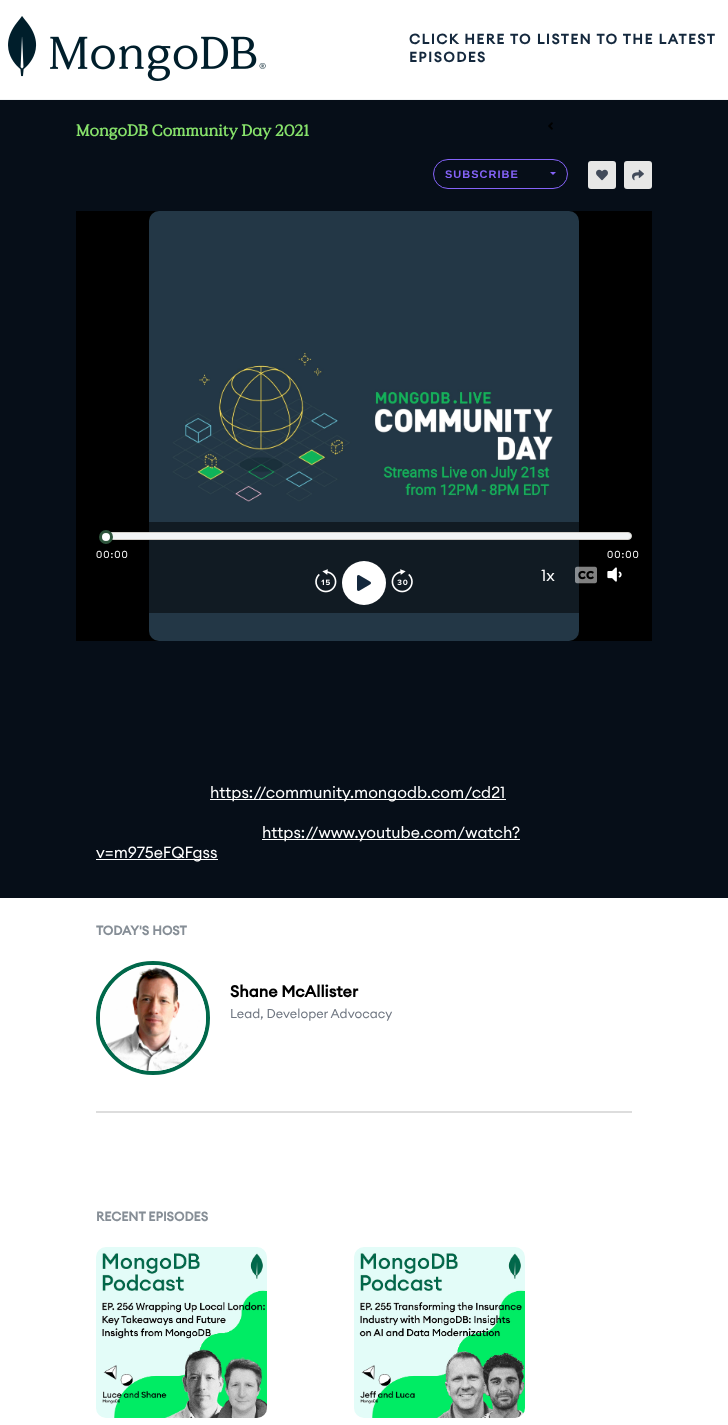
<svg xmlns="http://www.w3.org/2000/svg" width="728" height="1425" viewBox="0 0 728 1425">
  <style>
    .t1 { font: bold 14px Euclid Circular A; letter-spacing: 1.5px; fill: #14283d; }
    .t2 { font: bold 16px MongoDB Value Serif; fill: #87e26b; }
    .t3 { font: bold 11px Liberation Sans; letter-spacing: 1px; fill: #8563f8; }
    .t4 { font: 10px Euclid Circular A; letter-spacing: 1px; fill: #fff; }
    .t5 { font: 16px Euclid Circular A; fill: #fff; }
    .t6 { font: bold 12.75px Euclid Circular A; fill: #868e96; }
    .t7 { font: bold 16px Euclid Circular A; fill: #000; }
    .t8 { font: 12.75px Euclid Circular A; fill: #717883; }
  </style>
  <rect width="100%" height="100%" fill="#fff"/>
  <rect x="0" y="99" width="728" height="1" fill="#f2f4f5"/>
  <image x="8" y="16" width="258" height="65" href="images/1.png"/>
  <text x="409" y="44" class="t1">CLICK HERE TO LISTEN TO THE LATEST</text>
  <text x="409" y="62" class="t1">EPISODES</text>
  <rect x="0" y="100" width="728" height="798" fill="#060e18"/>
  <text x="76" y="136" class="t2">MongoDB Community Day 2021</text>
  <image x="548" y="122" width="5" height="8" href="images/2.png"/>
  <rect x="433.5" y="159.5" width="134" height="29" rx="14.5" fill="none" stroke="#8563f8"/>
  <text x="445" y="178" class="t3">SUBSCRIBE</text>
  <path d="M550 172H556L553 175Z" fill="#8563f8"/>
  <rect x="588" y="161" width="28" height="28" rx="3" fill="#e7e7e6"/>
  <image x="596" y="169" width="12" height="12" href="images/3.png"/>
  <rect x="624" y="161" width="28" height="28" rx="3" fill="#e7e7e6"/>
  <image x="632" y="169" width="12" height="12" href="images/4.png"/>
  <rect x="76" y="211" width="576" height="430" fill="#000"/>
  <image x="149" y="211" width="430" height="430" href="images/5.png"/>
  <rect x="149" y="522" width="430" height="91" fill="#00000080"/>
  <rect x="104.5" y="532.5" width="527" height="7" rx="3.5" fill="#f2f4f5" stroke="#d3d0cb"/>
  <circle cx="106" cy="537" r="5.5" fill="#fff" stroke="#2e553c" stroke-width="3"/>
  <text x="96" y="558" class="t4">00:00</text>
  <text x="607" y="558" class="t4">00:00</text>
  <image x="315" y="569" width="22" height="24" href="images/6.png"/>
  <circle cx="364" cy="583" r="22" fill="#fff"/>
  <image x="357" y="575" width="14" height="16" href="images/7.png"/>
  <image x="391" y="569" width="22" height="24" href="images/8.png"/>
  <text x="541" y="581" class="t5">1x</text>
  <image x="575" y="566" width="22" height="18" href="images/9.png"/>
  <image x="607" y="567" width="15" height="15" href="images/10.png"/>
  <rect x="210" y="799" width="296" height="1" fill="#fff"/>
  <text x="210" y="798" class="t5">https://community.mongodb.com/cd21</text>
  <rect x="262" y="839" width="258" height="1" fill="#fff"/>
  <text x="262" y="838" class="t5">https://www.youtube.com/watch?</text>
  <rect x="96" y="859" width="122" height="1" fill="#fff"/>
  <text x="96" y="858" class="t5">v=m975eFQFgss</text>
  <text x="96" y="935" class="t6">TODAY'S HOST</text>
  <circle cx="153" cy="1018" r="55" fill="none" stroke="#00684a" stroke-width="4"/>
  <image x="100" y="965" width="106" height="106" href="images/11.png"/>
  <text x="230" y="997" class="t7">Shane McAllister</text>
  <text x="230" y="1018" class="t8">Lead, Developer Advocacy</text>
  <rect x="96" y="1111" width="536" height="2" fill="#ddd"/>
  <text x="96" y="1221" class="t6">RECENT EPISODES</text>
  <image x="96" y="1247" width="171" height="171" href="images/12.png"/>
  <image x="354" y="1247" width="171" height="171" href="images/13.png"/>
</svg>
